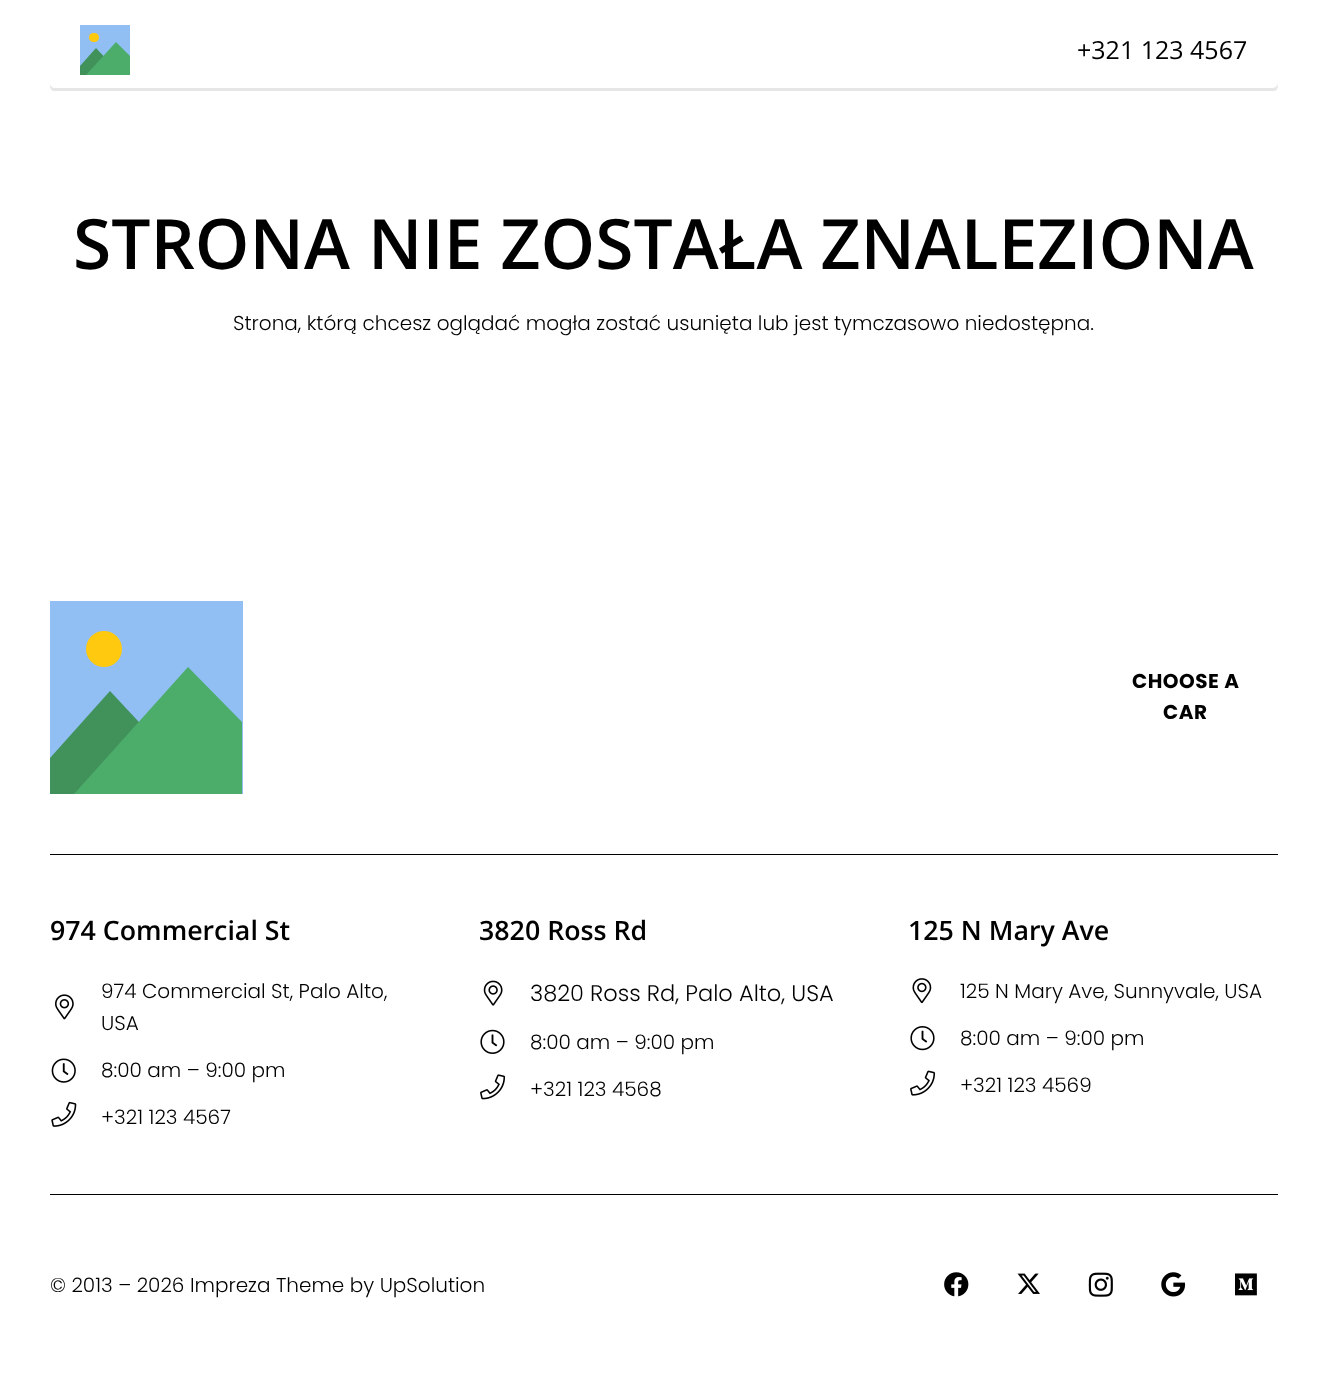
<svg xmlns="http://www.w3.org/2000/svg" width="1327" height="1396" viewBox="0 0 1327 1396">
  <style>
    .t1 { font: 25px Open Sans; fill: #000; }
    .t2 { font: 600 69.5px Open Sans; fill: #000; }
    .t3 { font: 300 20px Poppins; fill: #000; }
    .t4 { font: bold 20px Poppins; letter-spacing: 0.5px; fill: #000; }
    .t5 { font: 600 26.75px Open Sans; fill: #000; }
    .t6 { font: 300 22.5px Poppins; fill: #000; }
  </style>
  <rect width="100%" height="100%" fill="#fff"/>
  <path d="M50 82V86C50 89 52 91 55 91H1273C1276 91 1278 89 1278 86V21V19V82C1278 85 1275 88 1272 88H55C52 88 50 85 50 82Z" fill="#e6e6e6"/>
  <rect x="50" y="13" width="1228" height="75" rx="5" fill="#ffffffcc"/>
  <rect x="80" y="25" width="50" height="41" fill="#91bff4"/>
  <rect x="89" y="33" width="10" height="9" rx="4.5" fill="#ffc90f"/>
  <path d="M121 75H80V66L96 48Z" fill="#40915a"/>
  <path d="M130 56V75H86L116 42Z" fill="#4cad6b"/>
  <text x="1077" y="59" class="t1">+321 123 4567</text>
  <text x="73" y="269" class="t2">STRONA NIE ZOSTAŁA ZNALEZIONA</text>
  <text x="233" y="330" class="t3">Strona, którą chcesz oglądać mogła zostać usunięta lub jest tymczasowo niedostępna.</text>
  <rect x="50" y="601" width="193" height="193" fill="#91bff4"/>
  <circle cx="104" cy="649" r="18" fill="#ffc90f"/>
  <path d="M206 794H50V758L110 691Z" fill="#40915a"/>
  <path d="M242 722V794H74L188 667Z" fill="#4cad6b"/>
  <text x="1132" y="688" class="t4">CHOOSE A</text>
  <text x="1163" y="719" class="t4">CAR</text>
  <rect x="50" y="854" width="1228" height="1" fill="#000"/>
  <text x="50" y="940" class="t5">974 Commercial St</text>
  <image x="55" y="994" width="19" height="26" href="images/1.png"/>
  <text x="101" y="998" class="t3">974 Commercial St, Palo Alto,</text>
  <text x="101" y="1030" class="t3">USA</text>
  <image x="51" y="1058" width="25" height="25" href="images/2.png"/>
  <text x="101" y="1077" class="t3">8:00 am – 9:00 pm</text>
  <image x="51" y="1101" width="26" height="26" href="images/3.png"/>
  <text x="101" y="1124" class="t3">+321 123 4567</text>
  <text x="479" y="940" class="t5">3820 Ross Rd</text>
  <image x="483" y="980" width="20" height="26" href="images/4.png"/>
  <text x="530" y="1001" class="t6">3820 Ross Rd, Palo Alto, USA</text>
  <image x="480" y="1029" width="25" height="25" href="images/5.png"/>
  <text x="530" y="1049" class="t3">8:00 am – 9:00 pm</text>
  <image x="480" y="1074" width="26" height="26" href="images/6.png"/>
  <text x="530" y="1096" class="t3">+321 123 4568</text>
  <text x="908" y="940" class="t5">125 N Mary Ave</text>
  <image x="912" y="978" width="20" height="26" href="images/7.png"/>
  <text x="960" y="998" class="t3">125 N Mary Ave, Sunnyvale, USA</text>
  <image x="910" y="1026" width="25" height="25" href="images/8.png"/>
  <text x="960" y="1045" class="t3">8:00 am – 9:00 pm</text>
  <image x="910" y="1070" width="26" height="26" href="images/9.png"/>
  <text x="960" y="1092" class="t3">+321 123 4569</text>
  <rect x="50" y="1194" width="1228" height="1" fill="#000"/>
  <text x="50" y="1292" class="t3">© 2013 – 2026 Impreza Theme by UpSolution</text>
  <image x="944" y="1272" width="25" height="25" href="images/10.png"/>
  <image x="1017" y="1273" width="23" height="21" href="images/11.png"/>
  <image x="1088" y="1272" width="25" height="25" href="images/12.png"/>
  <image x="1161" y="1272" width="25" height="25" href="images/13.png"/>
  <image x="1235" y="1273" width="22" height="23" href="images/14.png"/>
</svg>
